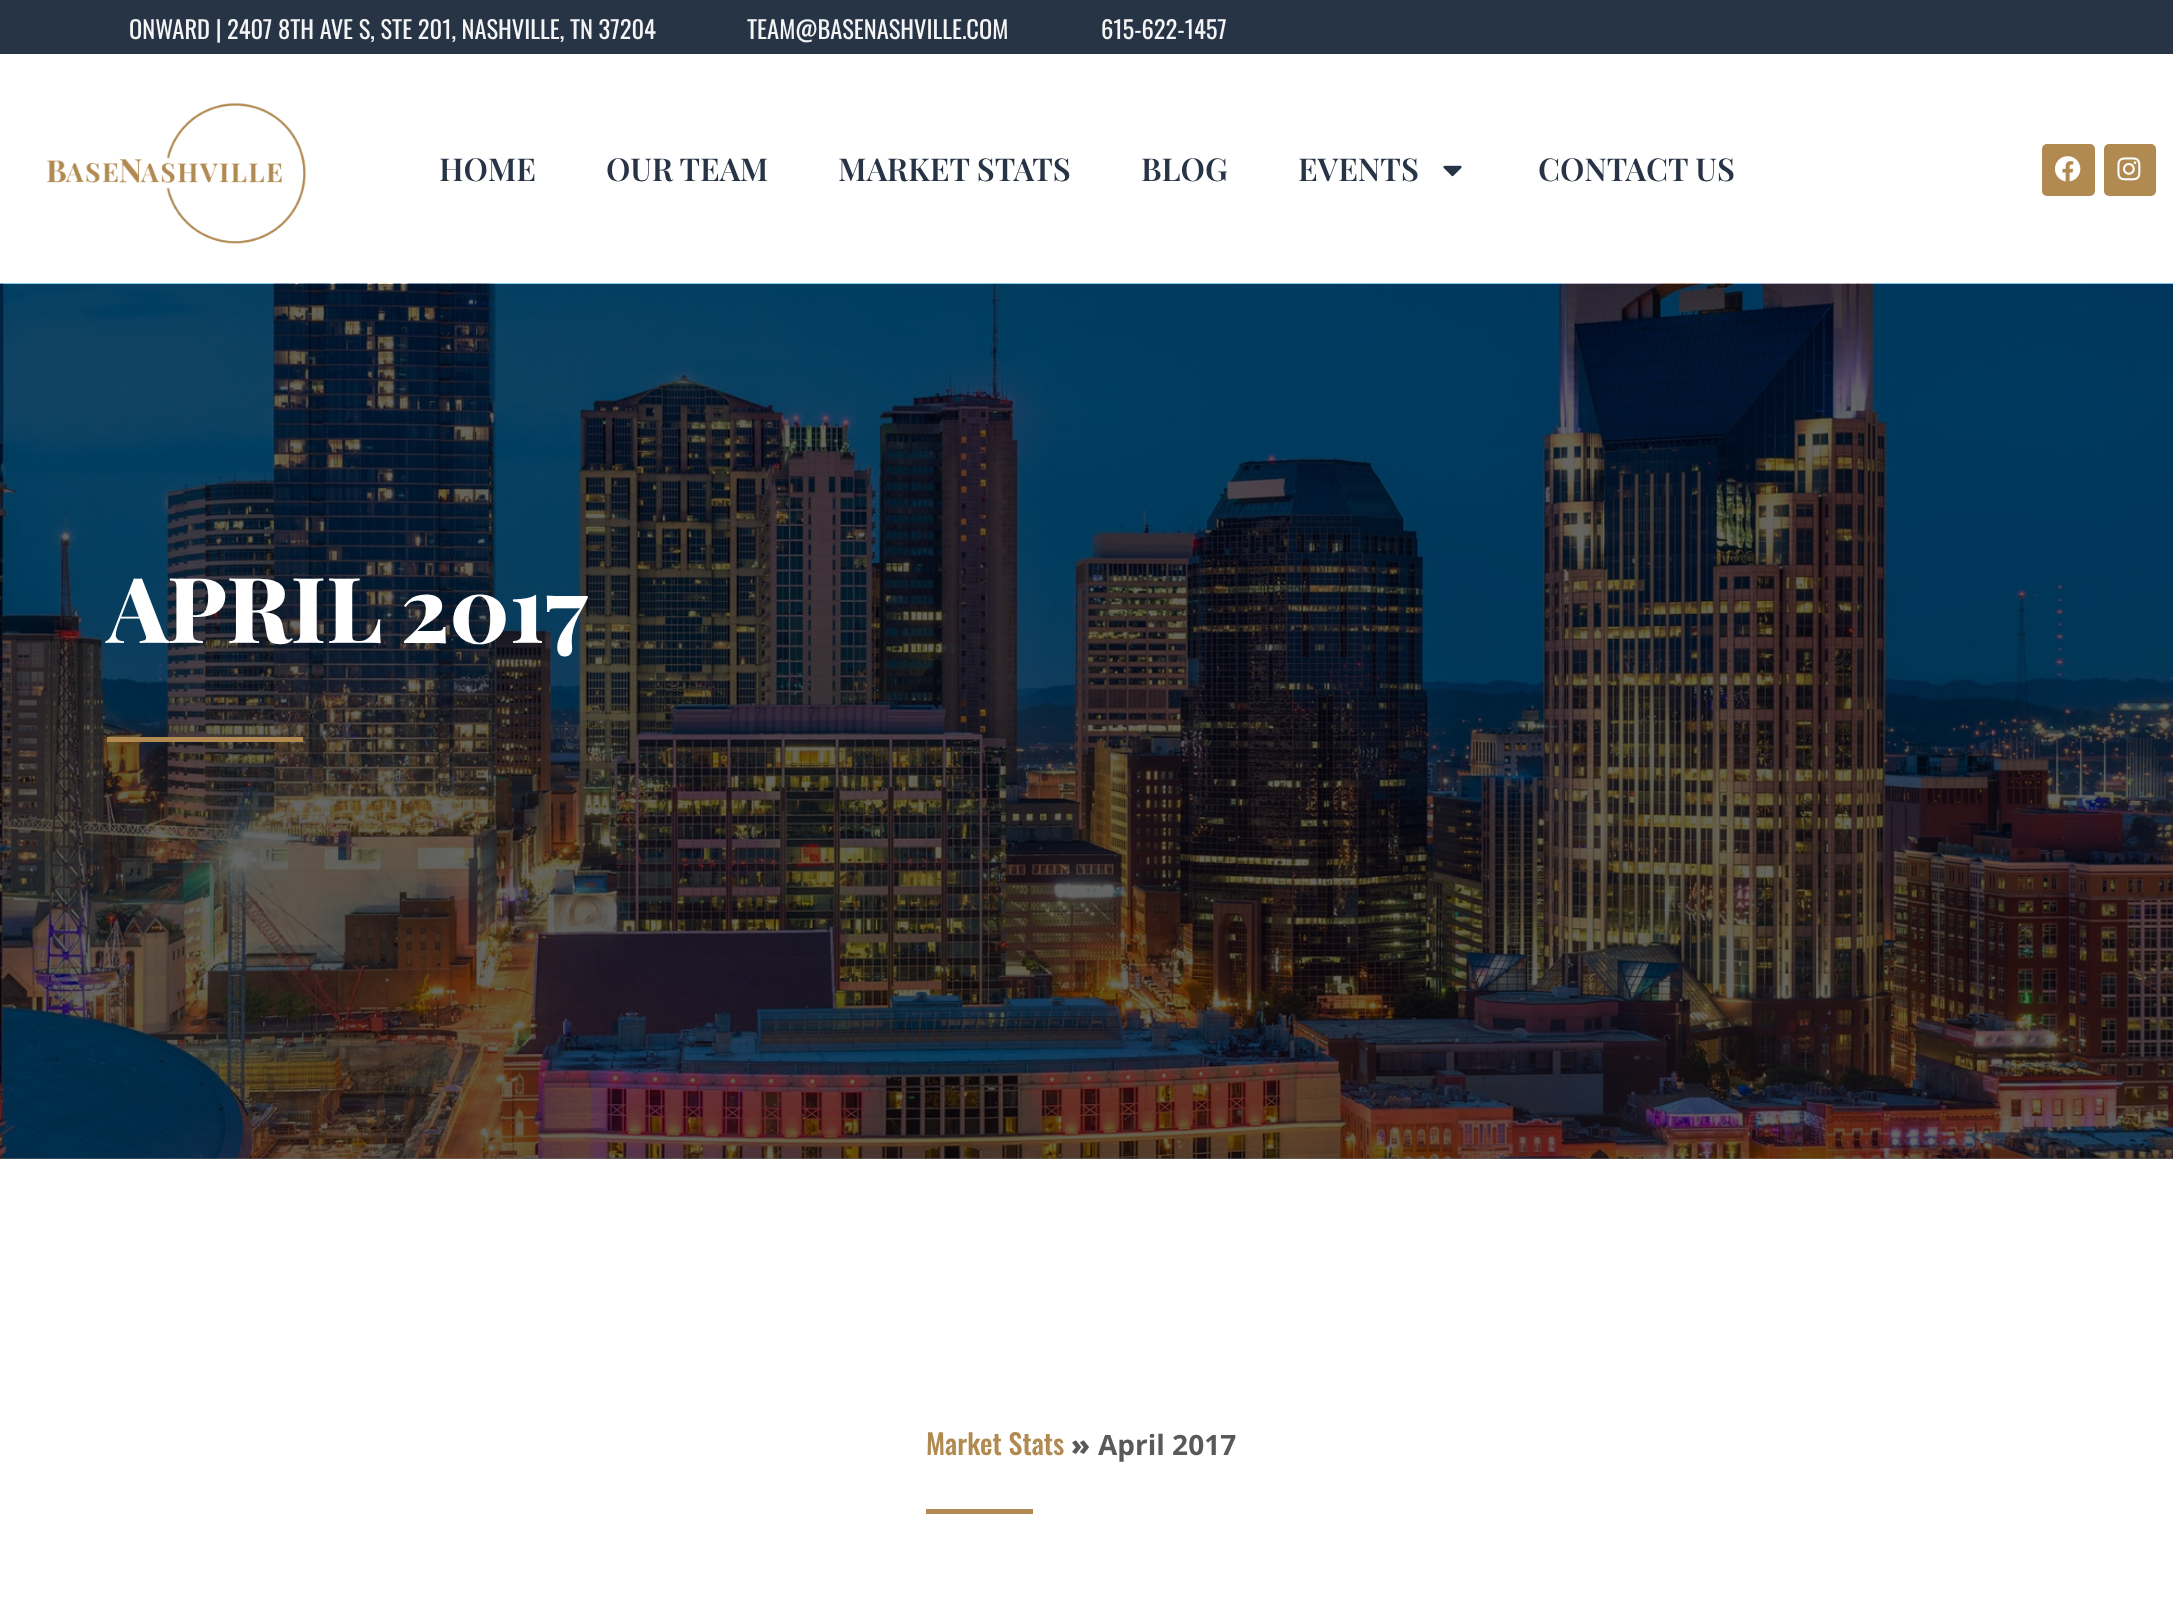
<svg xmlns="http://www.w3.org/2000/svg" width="2173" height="1608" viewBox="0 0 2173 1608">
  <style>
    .t1 { font: 24.5px Oswald; fill: #f5f5f5; }
    .t2 { font: 600 31.5px Playfair Display; fill: #273446; }
    .t3 { font: 800 91px Playfair Display; fill: #fff; }
    .t4 { font: 500 28px Oswald; fill: #b18a52; }
    .t5 { font: 800 28px Open Sans; fill: #595959; }
    .t6 { font: bold 28px Open Sans; fill: #595959; }
  </style>
  <rect width="100%" height="100%" fill="#fff"/>
  <rect x="0" y="1158" width="2173" height="1" fill="#666"/>
  <rect x="0" y="0" width="2173" height="54" fill="#273446"/>
  <text x="129" y="39" class="t1">ONWARD | 2407 8TH AVE S, STE 201, NASHVILLE, TN 37204</text>
  <text x="747" y="39" class="t1">TEAM@BASENASHVILLE.COM</text>
  <text x="1101" y="39" class="t1">615-622-1457</text>
  <image x="47" y="102" width="259" height="142" href="images/1.png"/>
  <text x="439" y="181" class="t2">HOME</text>
  <text x="606" y="181" class="t2">OUR TEAM</text>
  <text x="838" y="181" class="t2">MARKET STATS</text>
  <text x="1141" y="181" class="t2">BLOG</text>
  <text x="1298" y="181" class="t2">EVENTS</text>
  <image x="1443" y="165" width="19" height="12" href="images/2.png"/>
  <text x="1538" y="181" class="t2">CONTACT US</text>
  <rect x="2042" y="144" width="53" height="52" rx="5" fill="#b18a52"/>
  <image x="2055" y="156" width="26" height="26" href="images/3.png"/>
  <rect x="2104" y="144" width="52" height="52" rx="5" fill="#b18a52"/>
  <image x="2117" y="157" width="24" height="24" href="images/4.png"/>
  <image x="0" y="283" width="2173" height="876" href="images/5.png"/>
  <text x="107" y="643" class="t3">APRIL 2017</text>
  <rect x="107" y="737" width="196" height="5" fill="#b18a52"/>
  <text x="926" y="1455" class="t4">Market Stats</text>
  <text x="1071" y="1455" class="t5">»</text>
  <text x="1098" y="1455" class="t6">April 2017</text>
  <rect x="926" y="1509" width="107" height="5" fill="#b18a52"/>
</svg>
